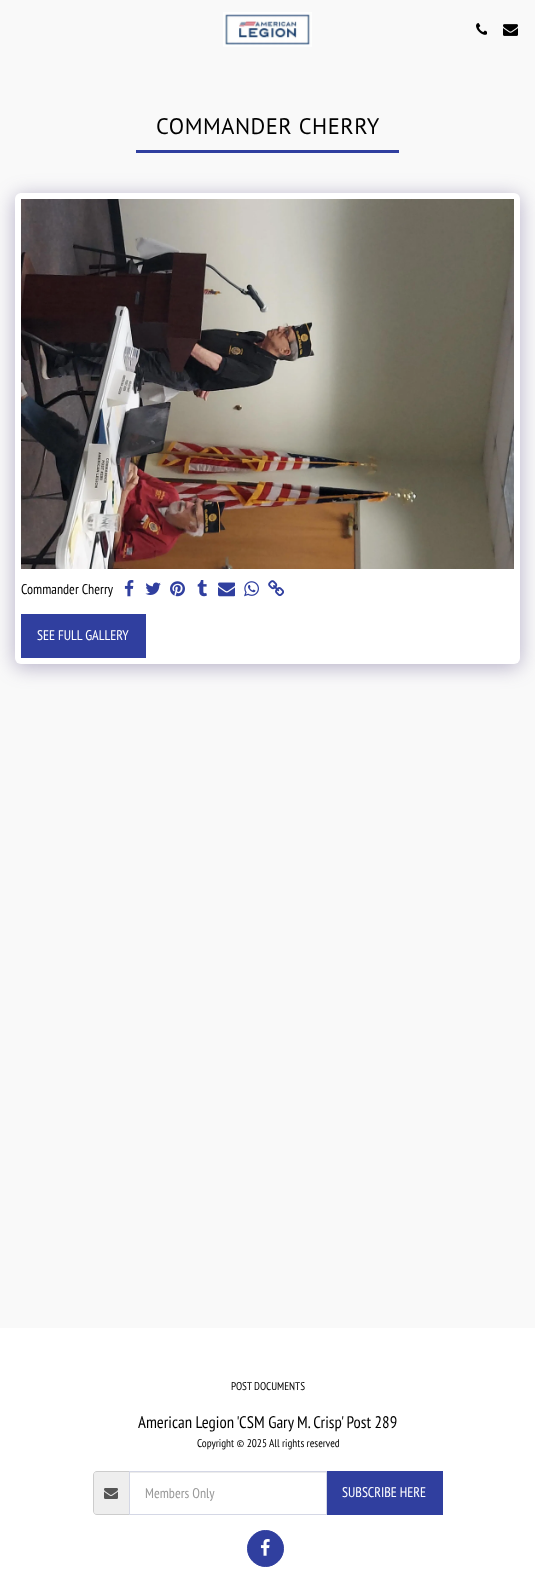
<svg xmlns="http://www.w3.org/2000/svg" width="535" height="1584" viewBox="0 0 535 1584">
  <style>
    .t1 { font: 22.5px PT Sans; letter-spacing: 0.5px; fill: #000; }
    .t2 { font: 14px PT Sans Narrow; fill: #000; }
    .t3 { font: 14px PT Sans Narrow; fill: #fff; }
    .t4 { font: 11.25px PT Sans Narrow; fill: #000; }
    .t5 { font: 16.75px PT Sans Narrow; fill: #000; }
    .t6 { font: 14px PT Sans Narrow; fill: #999; }
  </style>
  <rect width="100%" height="100%" fill="#fff"/>
  <rect x="0" y="0" width="535" height="1328" fill="#f9f9f9"/>
  <image x="223" y="12" width="89" height="35" href="images/1.png"/>
  <image x="476" y="23" width="11" height="12" href="images/2.png"/>
  <image x="503" y="24" width="15" height="12" href="images/3.png"/>
  <rect x="136" y="150" width="263" height="3" fill="#303f9f"/>
  <text x="156" y="134" class="t1">COMMANDER CHERRY</text>
  <rect x="15" y="196" width="505" height="471" rx="6" fill="#4d3f7a66" filter="blur(10px)"/>
  <rect x="15" y="193" width="505" height="471" rx="6" fill="#fff"/>
  <image x="21" y="199" width="493" height="370" href="images/4.png"/>
  <text x="21" y="594" class="t2">Commander Cherry</text>
  <image x="124" y="580" width="10" height="17" href="images/5.png"/>
  <image x="145" y="582" width="16" height="13" href="images/6.png"/>
  <image x="170" y="581" width="15" height="16" href="images/7.png"/>
  <image x="197" y="580" width="10" height="17" href="images/8.png"/>
  <image x="218" y="582" width="17" height="15" href="images/9.png"/>
  <image x="244" y="581" width="15" height="16" href="images/10.png"/>
  <image x="268" y="580" width="16" height="17" href="images/11.png"/>
  <rect x="21" y="614" width="125" height="44" fill="#303f9f"/>
  <text x="37" y="640" class="t3">SEE FULL GALLERY</text>
  <text x="231" y="1390" class="t4">POST DOCUMENTS</text>
  <text x="138" y="1428" class="t5">American Legion 'CSM Gary M. Crisp' Post 289</text>
  <text x="197" y="1447" class="t4">Copyright © 2025 All rights reserved</text>
  <path d="M97 1472H129V1514H97C95.5 1514 94 1512.5 94 1511V1475C94 1473.5 95.5 1472 97 1472Z" fill="#eee"/>
  <path d="M97 1471H129V1515H97C95 1515 93 1513 93 1511V1475C93 1473 95 1471 97 1471ZM97 1472H129V1514H97C95 1514 94 1513 94 1511V1475C94 1473 95 1472 97 1472Z" fill="#ccc" fill-rule="evenodd"/>
  <image x="104" y="1488" width="14" height="11" href="images/12.png"/>
  <rect x="130" y="1472" width="196" height="1" fill="#ececec"/>
  <rect x="129.5" y="1471.5" width="197" height="43" fill="none" stroke="#d4d7e5"/>
  <text x="145" y="1498" class="t6">Members Only</text>
  <rect x="327" y="1471" width="116" height="44" fill="#303f9f"/>
  <text x="342" y="1497" class="t3">SUBSCRIBE HERE</text>
  <circle cx="265.5" cy="1548.5" r="18" fill="#303f9f" stroke="#303f9f"/>
  <image x="260" y="1539" width="10" height="17" href="images/13.png"/>
</svg>
